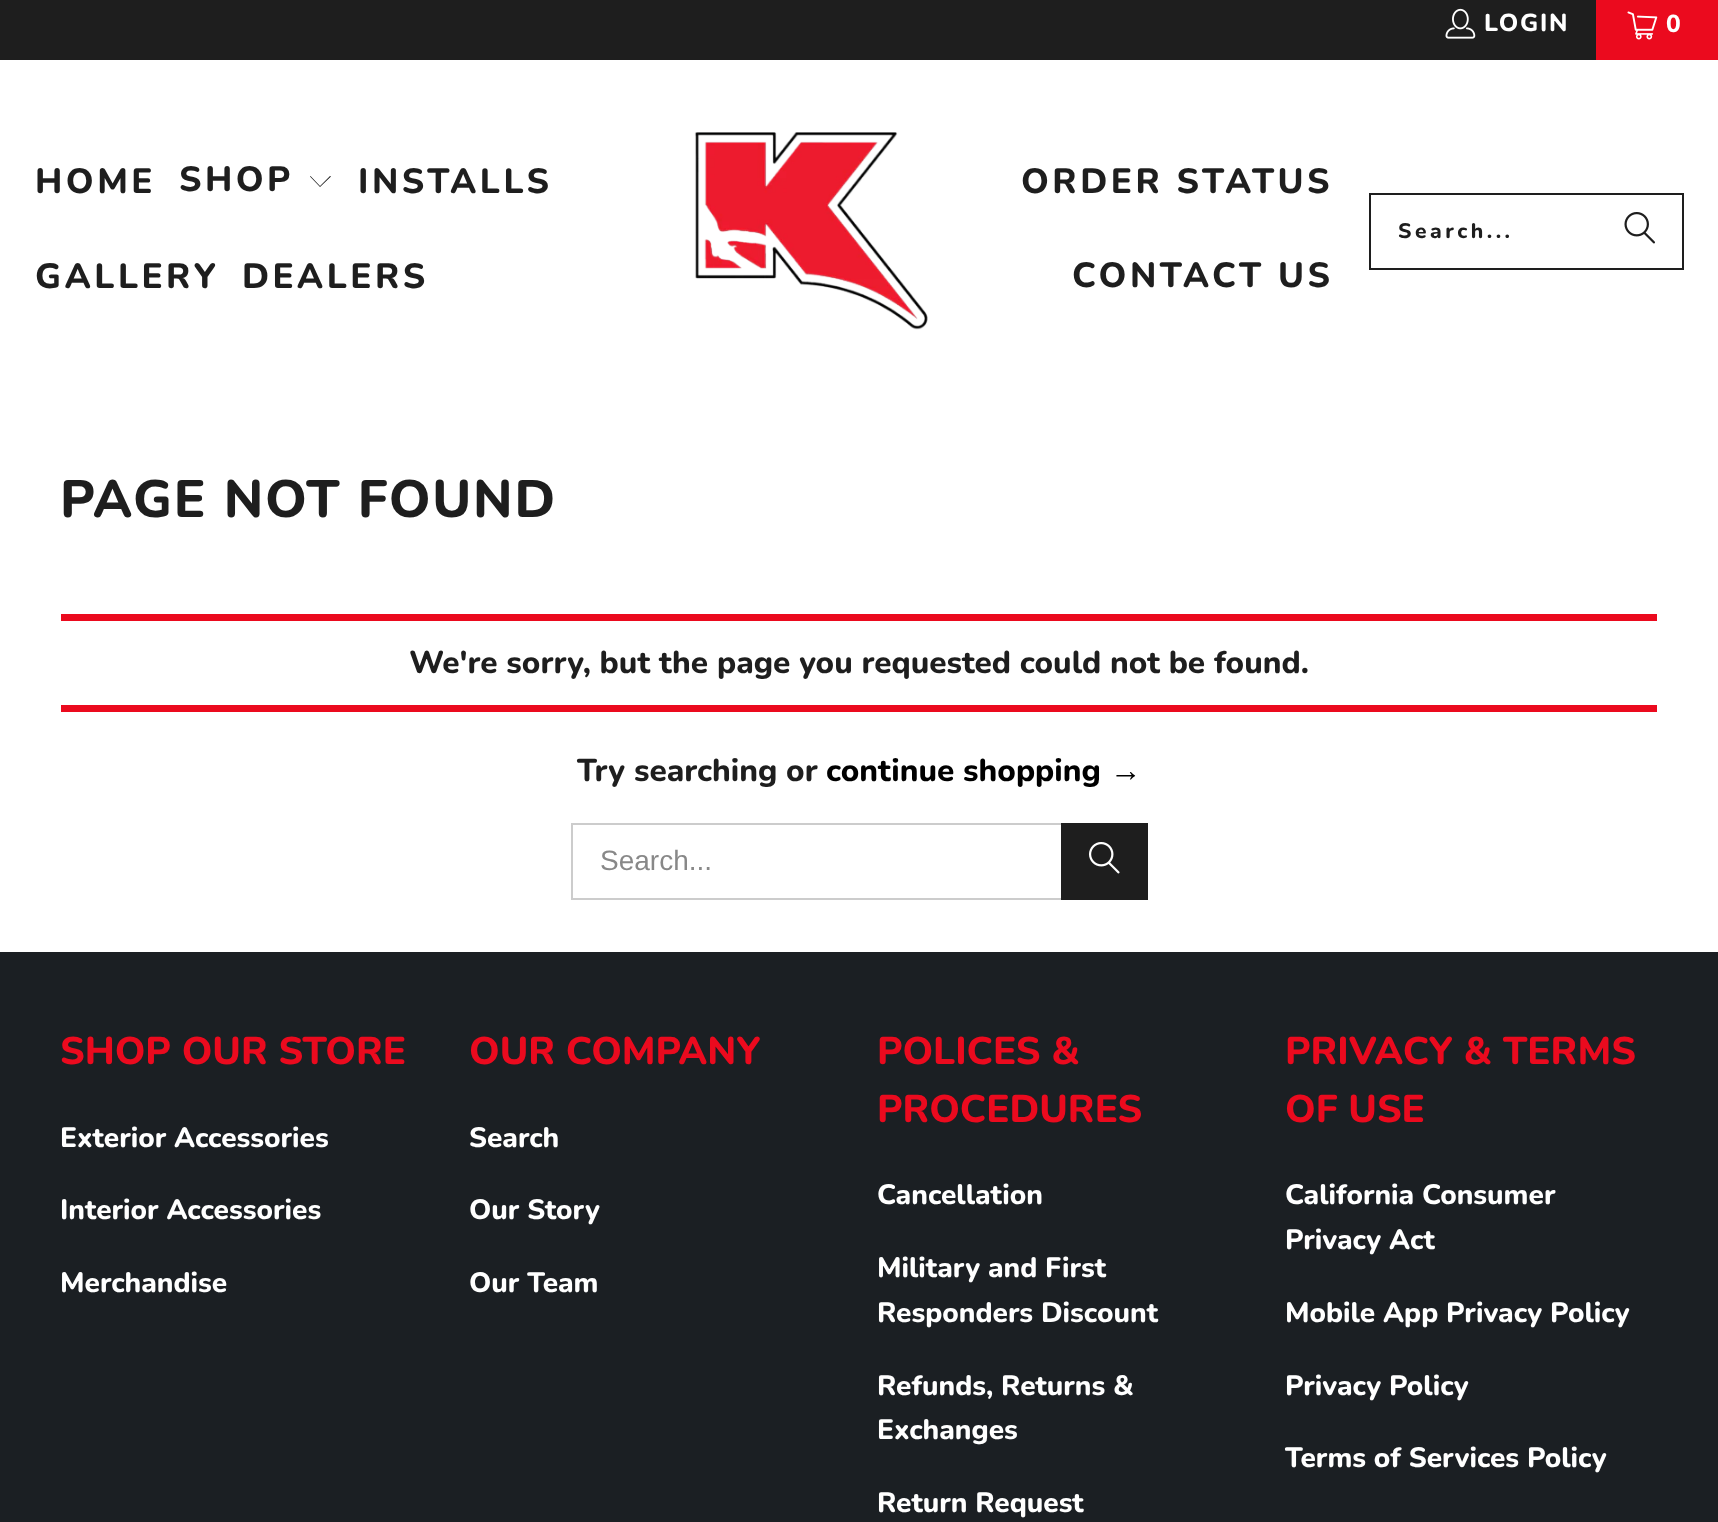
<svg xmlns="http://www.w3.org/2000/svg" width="1718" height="1522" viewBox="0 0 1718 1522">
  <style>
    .t1 { font: 800 24.5px Nunito; letter-spacing: 1.75px; fill: #fff; }
    .t2 { font: 800 35px Nunito; letter-spacing: 3.5px; fill: #1e1e1e; }
    .t3 { font: 800 21px Nunito; letter-spacing: 3.5px; fill: #1e1e1e; }
    .t4 { font: 800 52.5px Nunito; letter-spacing: 1.75px; fill: #1e1e1e; }
    .t5 { font: 800 31.5px Nunito; fill: #1e1e1e; }
    .t6 { font: 800 31.5px Nunito; fill: #000; }
    .t7 { font: bold 31.5px Liberation Sans; fill: #000; }
    .t8 { font: 28px Liberation Sans; fill: #888; }
    .t9 { font: 800 38.5px Nunito; fill: #eb0a1e; }
    .t10 { font: 800 28px Nunito; fill: #fff; }
  </style>
  <rect width="100%" height="100%" fill="#fff"/>
  <rect x="0" y="0" width="1596" height="60" fill="#1e1e1e"/>
  <image x="1445" y="8" width="31" height="31" href="images/1.png"/>
  <text x="1484" y="31" class="t1">LOGIN</text>
  <rect x="1596" y="0" width="122" height="60" fill="#eb0a1e"/>
  <image x="1627" y="11" width="31" height="29" href="images/2.png"/>
  <text x="1666" y="32" class="t1">0</text>
  <text x="35" y="193" class="t2">HOME</text>
  <text x="179" y="191" class="t2">SHOP</text>
  <path d="M320 187L310 176.5L310.5 176L320 186L330 176L331 176.5Z" fill="#1e1e1e"/>
  <text x="358" y="193" class="t2">INSTALLS</text>
  <text x="35" y="288" class="t2">GALLERY</text>
  <text x="242" y="288" class="t2">DEALERS</text>
  <image x="694" y="132" width="234" height="198" href="images/3.png"/>
  <text x="1021" y="193" class="t2">ORDER STATUS</text>
  <text x="1072" y="287" class="t2">CONTACT US</text>
  <rect x="1370" y="194" width="313" height="75" fill="none" stroke="#1e1e1e" stroke-width="2"/>
  <text x="1398" y="238" class="t3">Search...</text>
  <image x="1624" y="212" width="31" height="32" href="images/4.png"/>
  <text x="60" y="517" class="t4">PAGE NOT FOUND</text>
  <rect x="61" y="614" width="1596" height="7" fill="#eb0a1e"/>
  <rect x="61" y="705" width="1596" height="7" fill="#eb0a1e"/>
  <text x="409" y="673" class="t5">We're sorry, but the page you requested could not be found.</text>
  <text x="577" y="781" class="t5">Try searching or</text>
  <text x="826" y="781" class="t6">continue shopping</text>
  <text x="1110" y="781" class="t7">→</text>
  <rect x="572" y="824" width="575" height="75" fill="none" stroke="#ccc" stroke-width="2"/>
  <text x="600" y="870" class="t8">Search...</text>
  <rect x="1061" y="823" width="87" height="77" fill="#1e1e1e"/>
  <image x="1089" y="842" width="31" height="32" href="images/5.png"/>
  <rect x="0" y="952" width="1718" height="570" fill="#1b1f23"/>
  <text x="60" y="1064" class="t9">SHOP OUR STORE</text>
  <text x="60" y="1147" class="t10">Exterior Accessories</text>
  <text x="60" y="1219" class="t10">Interior Accessories</text>
  <text x="60" y="1292" class="t10">Merchandise</text>
  <text x="469" y="1064" class="t9">OUR COMPANY</text>
  <text x="469" y="1147" class="t10">Search</text>
  <text x="469" y="1219" class="t10">Our Story</text>
  <text x="469" y="1292" class="t10">Our Team</text>
  <text x="877" y="1064" class="t9">POLICES &amp;</text>
  <text x="877" y="1122" class="t9">PROCEDURES</text>
  <text x="877" y="1204" class="t10">Cancellation</text>
  <text x="877" y="1277" class="t10">Military and First</text>
  <text x="877" y="1322" class="t10">Responders Discount</text>
  <text x="877" y="1395" class="t10">Refunds, Returns &amp;</text>
  <text x="877" y="1439" class="t10">Exchanges</text>
  <text x="877" y="1512" class="t10">Return Request</text>
  <text x="1285" y="1064" class="t9">PRIVACY &amp; TERMS</text>
  <text x="1285" y="1122" class="t9">OF USE</text>
  <text x="1285" y="1204" class="t10">California Consumer</text>
  <text x="1285" y="1249" class="t10">Privacy Act</text>
  <text x="1285" y="1322" class="t10">Mobile App Privacy Policy</text>
  <text x="1285" y="1395" class="t10">Privacy Policy</text>
  <text x="1285" y="1467" class="t10">Terms of Services Policy</text>
</svg>
